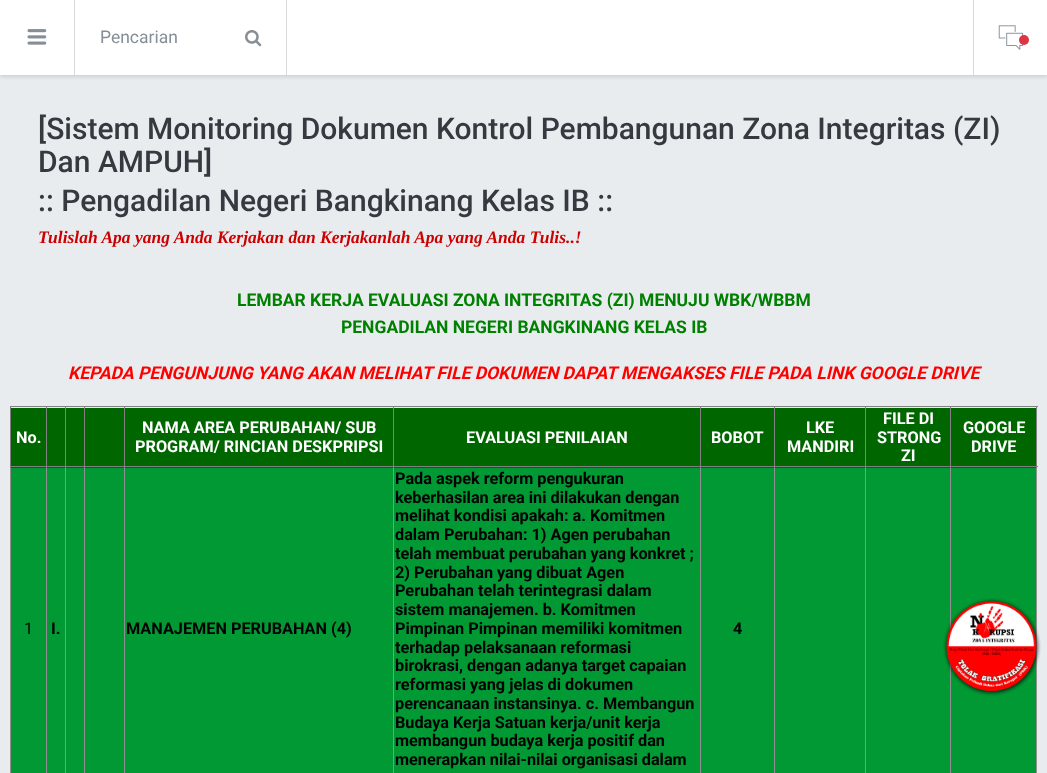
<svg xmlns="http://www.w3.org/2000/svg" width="1047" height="773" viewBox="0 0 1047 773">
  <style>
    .t1 { font: 17.5px Roboto; fill: #868e96; }
    .t2 { font: 500 30px Roboto; fill: #343a40; }
    .t3 { font: italic bold 17.5px Liberation Serif; fill: #c00; }
    .t4 { font: bold 17.5px Roboto; fill: #008000; }
    .t5 { font: italic bold 17.5px Roboto; fill: #f00; }
    .t6 { font: bold 16.25px Roboto; fill: #fff; }
    .t7 { font: 16.25px Roboto; fill: #000; }
    .t8 { font: bold 16.25px Roboto; fill: #000; }
  </style>
  <rect width="100%" height="100%" fill="#e9ecef"/>
  <rect x="0" y="1" width="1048" height="75" fill="#00000029" filter="blur(2.5px)"/>
  <rect x="0" y="0" width="1047" height="75" fill="#fff"/>
  <rect x="74" y="0" width="1" height="75" fill="#d9d9d9"/>
  <image x="27" y="29" width="20" height="16" href="images/1.png"/>
  <text x="100" y="43" class="t1">Pencarian</text>
  <rect x="286" y="0" width="1" height="75" fill="#d9d9d9"/>
  <image x="245" y="30" width="17" height="17" href="images/2.png"/>
  <rect x="973" y="0" width="1" height="75" fill="#d9d9d9"/>
  <image x="998" y="25" width="26" height="25" href="images/3.png"/>
  <circle cx="1024" cy="40" r="5" fill="#dc3545"/>
  <text x="38" y="139" class="t2">[Sistem Monitoring Dokumen Kontrol Pembangunan Zona Integritas (ZI)</text>
  <text x="38" y="172" class="t2">Dan AMPUH]</text>
  <text x="38" y="211" class="t2">:: Pengadilan Negeri Bangkinang Kelas IB ::</text>
  <text x="38" y="243" class="t3">Tulislah Apa yang Anda Kerjakan dan Kerjakanlah Apa yang Anda Tulis..!</text>
  <text x="237" y="306" class="t4">LEMBAR KERJA EVALUASI ZONA INTEGRITAS (ZI) MENUJU WBK/WBBM</text>
  <text x="341" y="333" class="t4">PENGADILAN NEGERI BANGKINANG KELAS IB</text>
  <text x="68" y="379" class="t5">KEPADA PENGUNJUNG YANG AKAN MELIHAT FILE DOKUMEN DAPAT MENGAKSES FILE PADA LINK GOOGLE DRIVE</text>
  <rect x="10" y="406" width="1028" height="1" fill="#808080"/>
  <rect x="11" y="408" width="35" height="60" fill="#060"/>
  <rect x="47" y="408" width="18" height="60" fill="#060"/>
  <rect x="66" y="408" width="18" height="60" fill="#060"/>
  <rect x="85" y="408" width="39" height="60" fill="#060"/>
  <rect x="125" y="408" width="268" height="60" fill="#060"/>
  <rect x="394" y="408" width="306" height="60" fill="#060"/>
  <rect x="701" y="408" width="73" height="60" fill="#060"/>
  <rect x="775" y="408" width="90" height="60" fill="#060"/>
  <rect x="866" y="408" width="84" height="60" fill="#060"/>
  <rect x="951" y="408" width="85" height="60" fill="#060"/>
  <rect x="1036" y="466" width="1" height="307" fill="#909090"/>
  <rect x="1036" y="406" width="1" height="62" fill="#808080"/>
  <rect x="11" y="468" width="1025" height="305" fill="#093"/>
  <rect x="950" y="466" width="1" height="307" fill="#909090"/>
  <rect x="950" y="466" width="88" height="1" fill="#808080"/>
  <rect x="950" y="406" width="1" height="62" fill="#808080"/>
  <rect x="865" y="466" width="1" height="307" fill="#909090"/>
  <rect x="865" y="466" width="86" height="1" fill="#808080"/>
  <rect x="865" y="406" width="1" height="62" fill="#808080"/>
  <rect x="774" y="466" width="1" height="307" fill="#909090"/>
  <rect x="774" y="466" width="92" height="1" fill="#808080"/>
  <rect x="774" y="406" width="1" height="62" fill="#808080"/>
  <rect x="700" y="466" width="1" height="307" fill="#909090"/>
  <rect x="700" y="466" width="75" height="1" fill="#808080"/>
  <rect x="700" y="406" width="1" height="62" fill="#808080"/>
  <rect x="393" y="466" width="1" height="307" fill="#909090"/>
  <rect x="393" y="466" width="308" height="1" fill="#808080"/>
  <rect x="393" y="406" width="1" height="62" fill="#808080"/>
  <rect x="124" y="466" width="1" height="307" fill="#909090"/>
  <rect x="124" y="466" width="270" height="1" fill="#808080"/>
  <rect x="124" y="406" width="1" height="62" fill="#808080"/>
  <rect x="84" y="466" width="1" height="307" fill="#909090"/>
  <rect x="84" y="466" width="41" height="1" fill="#808080"/>
  <rect x="84" y="406" width="1" height="62" fill="#808080"/>
  <rect x="65" y="466" width="1" height="307" fill="#909090"/>
  <rect x="65" y="466" width="20" height="1" fill="#808080"/>
  <rect x="65" y="406" width="1" height="62" fill="#808080"/>
  <rect x="46" y="466" width="1" height="307" fill="#909090"/>
  <rect x="46" y="466" width="20" height="1" fill="#808080"/>
  <rect x="46" y="406" width="1" height="62" fill="#808080"/>
  <rect x="10" y="466" width="1" height="307" fill="#909090"/>
  <rect x="10" y="466" width="38" height="1" fill="#808080"/>
  <rect x="10" y="406" width="1" height="62" fill="#808080"/>
  <text x="16" y="443" class="t6">No.</text>
  <text x="142" y="433" class="t6">NAMA AREA PERUBAHAN/ SUB</text>
  <text x="135" y="452" class="t6">PROGRAM/ RINCIAN DESKPRIPSI</text>
  <text x="466" y="443" class="t6">EVALUASI PENILAIAN</text>
  <text x="711" y="443" class="t6">BOBOT</text>
  <text x="806" y="433" class="t6">LKE</text>
  <text x="787" y="452" class="t6">MANDIRI</text>
  <text x="883" y="424" class="t6">FILE DI</text>
  <text x="877" y="443" class="t6">STRONG</text>
  <text x="901" y="461" class="t6">ZI</text>
  <text x="963" y="433" class="t6">GOOGLE</text>
  <text x="971" y="452" class="t6">DRIVE</text>
  <text x="24" y="634" class="t7">1</text>
  <text x="51" y="634" class="t8">I.</text>
  <text x="126" y="634" class="t8">MANAJEMEN PERUBAHAN (4)</text>
  <text x="395" y="484" class="t8">Pada aspek reform pengukuran</text>
  <text x="395" y="503" class="t8">keberhasilan area ini dilakukan dengan</text>
  <text x="395" y="521" class="t8">melihat kondisi apakah: a. Komitmen</text>
  <text x="395" y="540" class="t8">dalam Perubahan: 1) Agen perubahan</text>
  <text x="395" y="559" class="t8">telah membuat perubahan yang konkret ;</text>
  <text x="395" y="578" class="t8">2) Perubahan yang dibuat Agen</text>
  <text x="395" y="596" class="t8">Perubahan telah terintegrasi dalam</text>
  <text x="395" y="615" class="t8">sistem manajemen. b. Komitmen</text>
  <text x="395" y="634" class="t8">Pimpinan Pimpinan memiliki komitmen</text>
  <text x="395" y="653" class="t8">terhadap pelaksanaan reformasi</text>
  <text x="395" y="671" class="t8">birokrasi, dengan adanya target capaian</text>
  <text x="395" y="690" class="t8">reformasi yang jelas di dokumen</text>
  <text x="395" y="709" class="t8">perencanaan instansinya. c. Membangun</text>
  <text x="395" y="728" class="t8">Budaya Kerja Satuan kerja/unit kerja</text>
  <text x="395" y="746" class="t8">membangun budaya kerja positif dan</text>
  <text x="395" y="765" class="t8">menerapkan nilai-nilai organisasi dalam</text>
  <text x="733" y="634" class="t8">4</text>
  <image x="943" y="598" width="98" height="98" href="images/4.png"/>
</svg>
